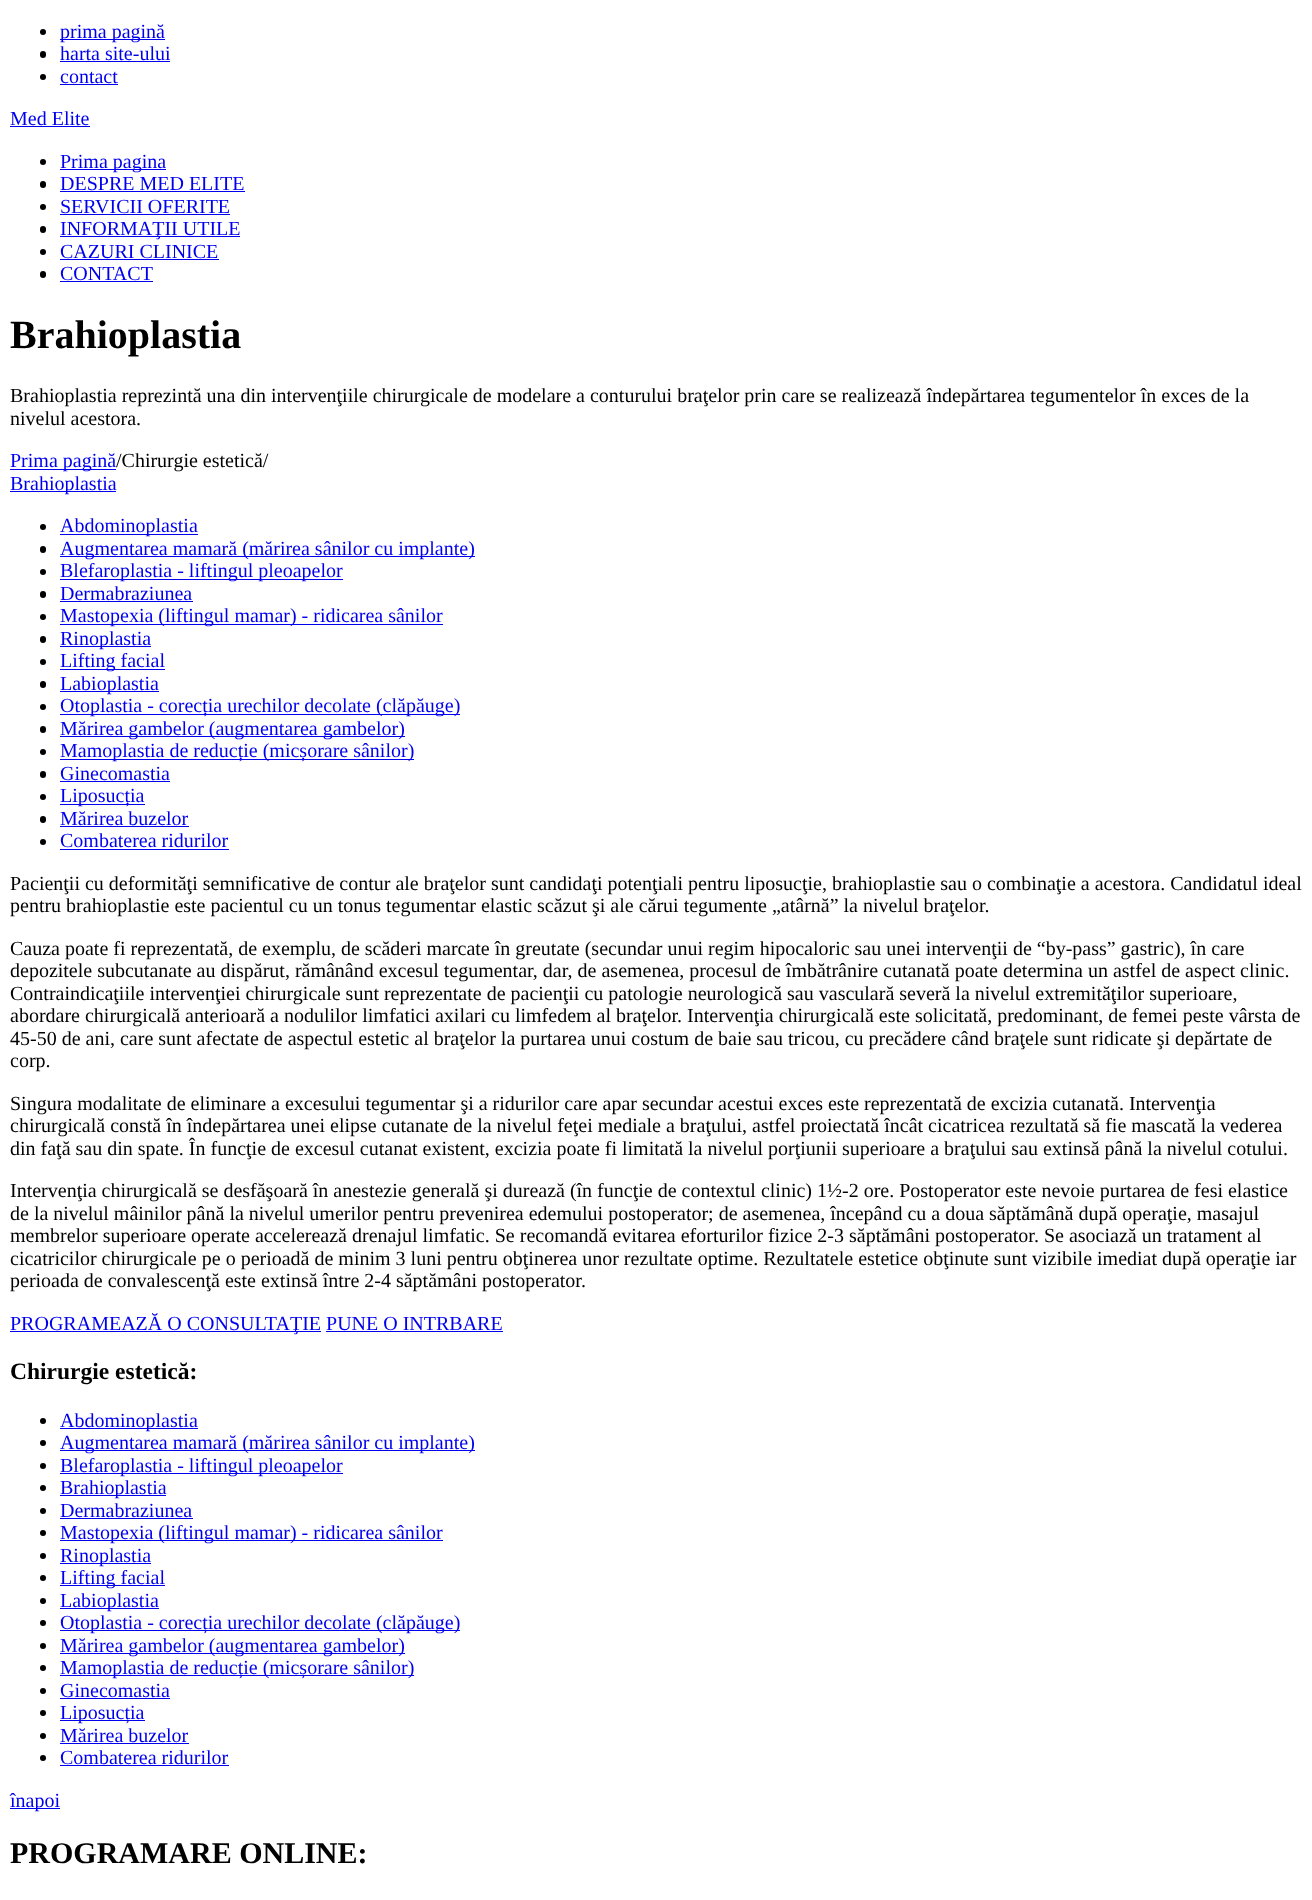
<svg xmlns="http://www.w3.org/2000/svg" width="1312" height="1900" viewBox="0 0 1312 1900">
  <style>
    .t1 { font: 20px Liberation Serif; fill: #00e; }
    .t2 { font: bold 40px Liberation Serif; fill: #000; }
    .t3 { font: 20px Liberation Serif; fill: #000; }
    .t4 { font: bold 23.5px Liberation Serif; fill: #000; }
    .t5 { font: bold 30px Liberation Serif; fill: #000; }
  </style>
  <rect width="100%" height="100%" fill="#fff"/>
  <circle cx="43" cy="32" r="3" fill="#000"/>
  <rect x="60" y="39" width="105" height="1" fill="#00e"/>
  <text x="60" y="38" class="t1">prima pagină</text>
  <rect x="40" y="51" width="6" height="7" rx="3" fill="#000"/>
  <text x="60" y="60" class="t1">harta site-ului</text>
  <rect x="60" y="61" width="110" height="1" fill="#00e"/>
  <circle cx="43" cy="77" r="3" fill="#000"/>
  <text x="60" y="83" class="t1">contact</text>
  <rect x="60" y="84" width="58" height="1" fill="#00e"/>
  <text x="10" y="125" class="t1">Med Elite</text>
  <rect x="10" y="126" width="80" height="1" fill="#00e"/>
  <circle cx="43" cy="162" r="3" fill="#000"/>
  <rect x="60" y="169" width="106" height="1" fill="#00e"/>
  <text x="60" y="168" class="t1">Prima pagina</text>
  <rect x="40" y="181" width="6" height="7" rx="3" fill="#000"/>
  <text x="60" y="190" class="t1">DESPRE MED ELITE</text>
  <rect x="60" y="191" width="185" height="1" fill="#00e"/>
  <circle cx="43" cy="207" r="3" fill="#000"/>
  <text x="60" y="213" class="t1">SERVICII OFERITE</text>
  <rect x="60" y="214" width="170" height="1" fill="#00e"/>
  <rect x="40" y="226" width="6" height="7" rx="3" fill="#000"/>
  <rect x="60" y="236" width="180" height="1" fill="#00e"/>
  <text x="60" y="235" class="t1">INFORMAŢII UTILE</text>
  <circle cx="43" cy="252" r="3" fill="#000"/>
  <text x="60" y="258" class="t1">CAZURI CLINICE</text>
  <rect x="60" y="259" width="159" height="1" fill="#00e"/>
  <rect x="40" y="271" width="6" height="7" rx="3" fill="#000"/>
  <text x="60" y="280" class="t1">CONTACT</text>
  <rect x="60" y="281" width="93" height="1" fill="#00e"/>
  <text x="10" y="348" class="t2">Brahioplastia</text>
  <text x="10" y="402" class="t3">Brahioplastia reprezintă una din intervenţiile chirurgicale de modelare a conturului braţelor prin care se realizează îndepărtarea tegumentelor în exces de la</text>
  <text x="10" y="425" class="t3">nivelul acestora.</text>
  <rect x="10" y="469" width="106" height="1" fill="#00e"/>
  <text x="10" y="467" class="t1">Prima pagină</text>
  <text x="116" y="467" class="t3">/Chirurgie estetică/</text>
  <rect x="10" y="491" width="106" height="1" fill="#00e"/>
  <text x="10" y="490" class="t1">Brahioplastia</text>
  <circle cx="43" cy="527" r="3" fill="#000"/>
  <rect x="60" y="534" width="138" height="1" fill="#00e"/>
  <text x="60" y="532" class="t1">Abdominoplastia</text>
  <rect x="40" y="546" width="6" height="7" rx="3" fill="#000"/>
  <rect x="60" y="556" width="415" height="1" fill="#00e"/>
  <text x="60" y="555" class="t1">Augmentarea mamară (mărirea sânilor cu implante)</text>
  <circle cx="43" cy="572" r="3" fill="#000"/>
  <rect x="60" y="579" width="283" height="1" fill="#00e"/>
  <text x="60" y="577" class="t1">Blefaroplastia - liftingul pleoapelor</text>
  <rect x="40" y="591" width="6" height="7" rx="3" fill="#000"/>
  <text x="60" y="600" class="t1">Dermabraziunea</text>
  <rect x="60" y="601" width="133" height="1" fill="#00e"/>
  <circle cx="43" cy="617" r="3" fill="#000"/>
  <rect x="60" y="624" width="383" height="1" fill="#00e"/>
  <text x="60" y="622" class="t1">Mastopexia (liftingul mamar) - ridicarea sânilor</text>
  <rect x="40" y="636" width="6" height="7" rx="3" fill="#000"/>
  <rect x="60" y="646" width="91" height="1" fill="#00e"/>
  <text x="60" y="645" class="t1">Rinoplastia</text>
  <circle cx="43" cy="662" r="3" fill="#000"/>
  <rect x="60" y="669" width="105" height="1" fill="#00e"/>
  <text x="60" y="667" class="t1">Lifting facial</text>
  <rect x="40" y="681" width="6" height="7" rx="3" fill="#000"/>
  <rect x="60" y="691" width="99" height="1" fill="#00e"/>
  <text x="60" y="690" class="t1">Labioplastia</text>
  <circle cx="43" cy="707" r="3" fill="#000"/>
  <rect x="60" y="714" width="400" height="1" fill="#00e"/>
  <text x="60" y="712" class="t1">Otoplastia - corecția urechilor decolate (clăpăuge)</text>
  <rect x="40" y="726" width="6" height="7" rx="3" fill="#000"/>
  <rect x="60" y="736" width="345" height="1" fill="#00e"/>
  <text x="60" y="735" class="t1">Mărirea gambelor (augmentarea gambelor)</text>
  <circle cx="43" cy="752" r="3" fill="#000"/>
  <rect x="60" y="759" width="354" height="1" fill="#00e"/>
  <text x="60" y="757" class="t1">Mamoplastia de reducție (micșorare sânilor)</text>
  <rect x="40" y="771" width="6" height="7" rx="3" fill="#000"/>
  <text x="60" y="780" class="t1">Ginecomastia</text>
  <rect x="60" y="781" width="110" height="1" fill="#00e"/>
  <circle cx="43" cy="797" r="3" fill="#000"/>
  <rect x="60" y="804" width="85" height="1" fill="#00e"/>
  <text x="60" y="802" class="t1">Liposucția</text>
  <rect x="40" y="816" width="6" height="7" rx="3" fill="#000"/>
  <text x="60" y="825" class="t1">Mărirea buzelor</text>
  <rect x="60" y="826" width="129" height="1" fill="#00e"/>
  <circle cx="43" cy="842" r="3" fill="#000"/>
  <text x="60" y="847" class="t1">Combaterea ridurilor</text>
  <rect x="60" y="849" width="169" height="1" fill="#00e"/>
  <text x="10" y="890" class="t3">Pacienţii cu deformităţi semnificative de contur ale braţelor sunt candidaţi potenţiali pentru liposucţie, brahioplastie sau o combinaţie a acestora. Candidatul ideal</text>
  <text x="10" y="912" class="t3">pentru brahioplastie este pacientul cu un tonus tegumentar elastic scăzut şi ale cărui tegumente „atârnă” la nivelul braţelor.</text>
  <text x="10" y="955" class="t3">Cauza poate fi reprezentată, de exemplu, de scăderi marcate în greutate (secundar unui regim hipocaloric sau unei intervenţii de “by-pass” gastric), în care</text>
  <text x="10" y="977" class="t3">depozitele subcutanate au dispărut, rămânând excesul tegumentar, dar, de asemenea, procesul de îmbătrânire cutanată poate determina un astfel de aspect clinic.</text>
  <text x="10" y="1000" class="t3">Contraindicaţiile intervenţiei chirurgicale sunt reprezentate de pacienţii cu patologie neurologică sau vasculară severă la nivelul extremităţilor superioare,</text>
  <text x="10" y="1022" class="t3">abordare chirurgicală anterioară a nodulilor limfatici axilari cu limfedem al braţelor. Intervenţia chirurgicală este solicitată, predominant, de femei peste vârsta de</text>
  <text x="10" y="1045" class="t3">45-50 de ani, care sunt afectate de aspectul estetic al braţelor la purtarea unui costum de baie sau tricou, cu precădere când braţele sunt ridicate şi depărtate de</text>
  <text x="10" y="1067" class="t3">corp.</text>
  <text x="10" y="1110" class="t3">Singura modalitate de eliminare a excesului tegumentar şi a ridurilor care apar secundar acestui exces este reprezentată de excizia cutanată. Intervenţia</text>
  <text x="10" y="1132" class="t3">chirurgicală constă în îndepărtarea unei elipse cutanate de la nivelul feţei mediale a braţului, astfel proiectată încât cicatricea rezultată să fie mascată la vederea</text>
  <text x="10" y="1155" class="t3">din faţă sau din spate. În funcţie de excesul cutanat existent, excizia poate fi limitată la nivelul porţiunii superioare a braţului sau extinsă până la nivelul cotului.</text>
  <text x="10" y="1197" class="t3">Intervenţia chirurgicală se desfăşoară în anestezie generală şi durează (în funcţie de contextul clinic) 1½-2 ore. Postoperator este nevoie purtarea de fesi elastice</text>
  <text x="10" y="1220" class="t3">de la nivelul mâinilor până la nivelul umerilor pentru prevenirea edemului postoperator; de asemenea, începând cu a doua săptămână după operaţie, masajul</text>
  <text x="10" y="1242" class="t3">membrelor superioare operate accelerează drenajul limfatic. Se recomandă evitarea eforturilor fizice 2-3 săptămâni postoperator. Se asociază un tratament al</text>
  <text x="10" y="1265" class="t3">cicatricilor chirurgicale pe o perioadă de minim 3 luni pentru obţinerea unor rezultate optime. Rezultatele estetice obţinute sunt vizibile imediat după operaţie iar</text>
  <text x="10" y="1287" class="t3">perioada de convalescenţă este extinsă între 2-4 săptămâni postoperator.</text>
  <rect x="10" y="1331" width="311" height="1" fill="#00e"/>
  <text x="10" y="1330" class="t1">PROGRAMEAZĂ O CONSULTAŢIE PUNE O INTRBARE</text>
  <rect x="326" y="1331" width="177" height="1" fill="#00e"/>
  <text x="10" y="1379" class="t4">Chirurgie estetică:</text>
  <circle cx="43" cy="1421" r="3" fill="#000"/>
  <rect x="60" y="1428" width="138" height="1" fill="#00e"/>
  <text x="60" y="1427" class="t1">Abdominoplastia</text>
  <circle cx="43" cy="1443" r="3" fill="#000"/>
  <rect x="60" y="1450" width="415" height="1" fill="#00e"/>
  <text x="60" y="1449" class="t1">Augmentarea mamară (mărirea sânilor cu implante)</text>
  <circle cx="43" cy="1466" r="3" fill="#000"/>
  <rect x="60" y="1473" width="283" height="1" fill="#00e"/>
  <text x="60" y="1472" class="t1">Blefaroplastia - liftingul pleoapelor</text>
  <circle cx="43" cy="1488" r="3" fill="#000"/>
  <rect x="60" y="1495" width="106" height="1" fill="#00e"/>
  <text x="60" y="1494" class="t1">Brahioplastia</text>
  <circle cx="43" cy="1511" r="3" fill="#000"/>
  <text x="60" y="1517" class="t1">Dermabraziunea</text>
  <rect x="60" y="1518" width="133" height="1" fill="#00e"/>
  <circle cx="43" cy="1533" r="3" fill="#000"/>
  <rect x="60" y="1540" width="383" height="1" fill="#00e"/>
  <text x="60" y="1539" class="t1">Mastopexia (liftingul mamar) - ridicarea sânilor</text>
  <circle cx="43" cy="1556" r="3" fill="#000"/>
  <rect x="60" y="1563" width="91" height="1" fill="#00e"/>
  <text x="60" y="1562" class="t1">Rinoplastia</text>
  <circle cx="43" cy="1578" r="3" fill="#000"/>
  <rect x="60" y="1585" width="105" height="1" fill="#00e"/>
  <text x="60" y="1584" class="t1">Lifting facial</text>
  <circle cx="43" cy="1601" r="3" fill="#000"/>
  <rect x="60" y="1608" width="99" height="1" fill="#00e"/>
  <text x="60" y="1607" class="t1">Labioplastia</text>
  <circle cx="43" cy="1623" r="3" fill="#000"/>
  <rect x="60" y="1630" width="400" height="1" fill="#00e"/>
  <text x="60" y="1629" class="t1">Otoplastia - corecția urechilor decolate (clăpăuge)</text>
  <circle cx="43" cy="1646" r="3" fill="#000"/>
  <rect x="60" y="1653" width="345" height="1" fill="#00e"/>
  <text x="60" y="1652" class="t1">Mărirea gambelor (augmentarea gambelor)</text>
  <circle cx="43" cy="1668" r="3" fill="#000"/>
  <rect x="60" y="1675" width="354" height="1" fill="#00e"/>
  <text x="60" y="1674" class="t1">Mamoplastia de reducție (micșorare sânilor)</text>
  <circle cx="43" cy="1691" r="3" fill="#000"/>
  <text x="60" y="1697" class="t1">Ginecomastia</text>
  <rect x="60" y="1698" width="110" height="1" fill="#00e"/>
  <circle cx="43" cy="1713" r="3" fill="#000"/>
  <rect x="60" y="1720" width="85" height="1" fill="#00e"/>
  <text x="60" y="1719" class="t1">Liposucția</text>
  <circle cx="43" cy="1736" r="3" fill="#000"/>
  <text x="60" y="1742" class="t1">Mărirea buzelor</text>
  <rect x="60" y="1743" width="129" height="1" fill="#00e"/>
  <circle cx="43" cy="1758" r="3" fill="#000"/>
  <text x="60" y="1764" class="t1">Combaterea ridurilor</text>
  <rect x="60" y="1765" width="169" height="1" fill="#00e"/>
  <rect x="10" y="1808" width="50" height="1" fill="#00e"/>
  <text x="10" y="1807" class="t1">înapoi</text>
  <text x="10" y="1863" class="t5">PROGRAMARE ONLINE:</text>
</svg>
